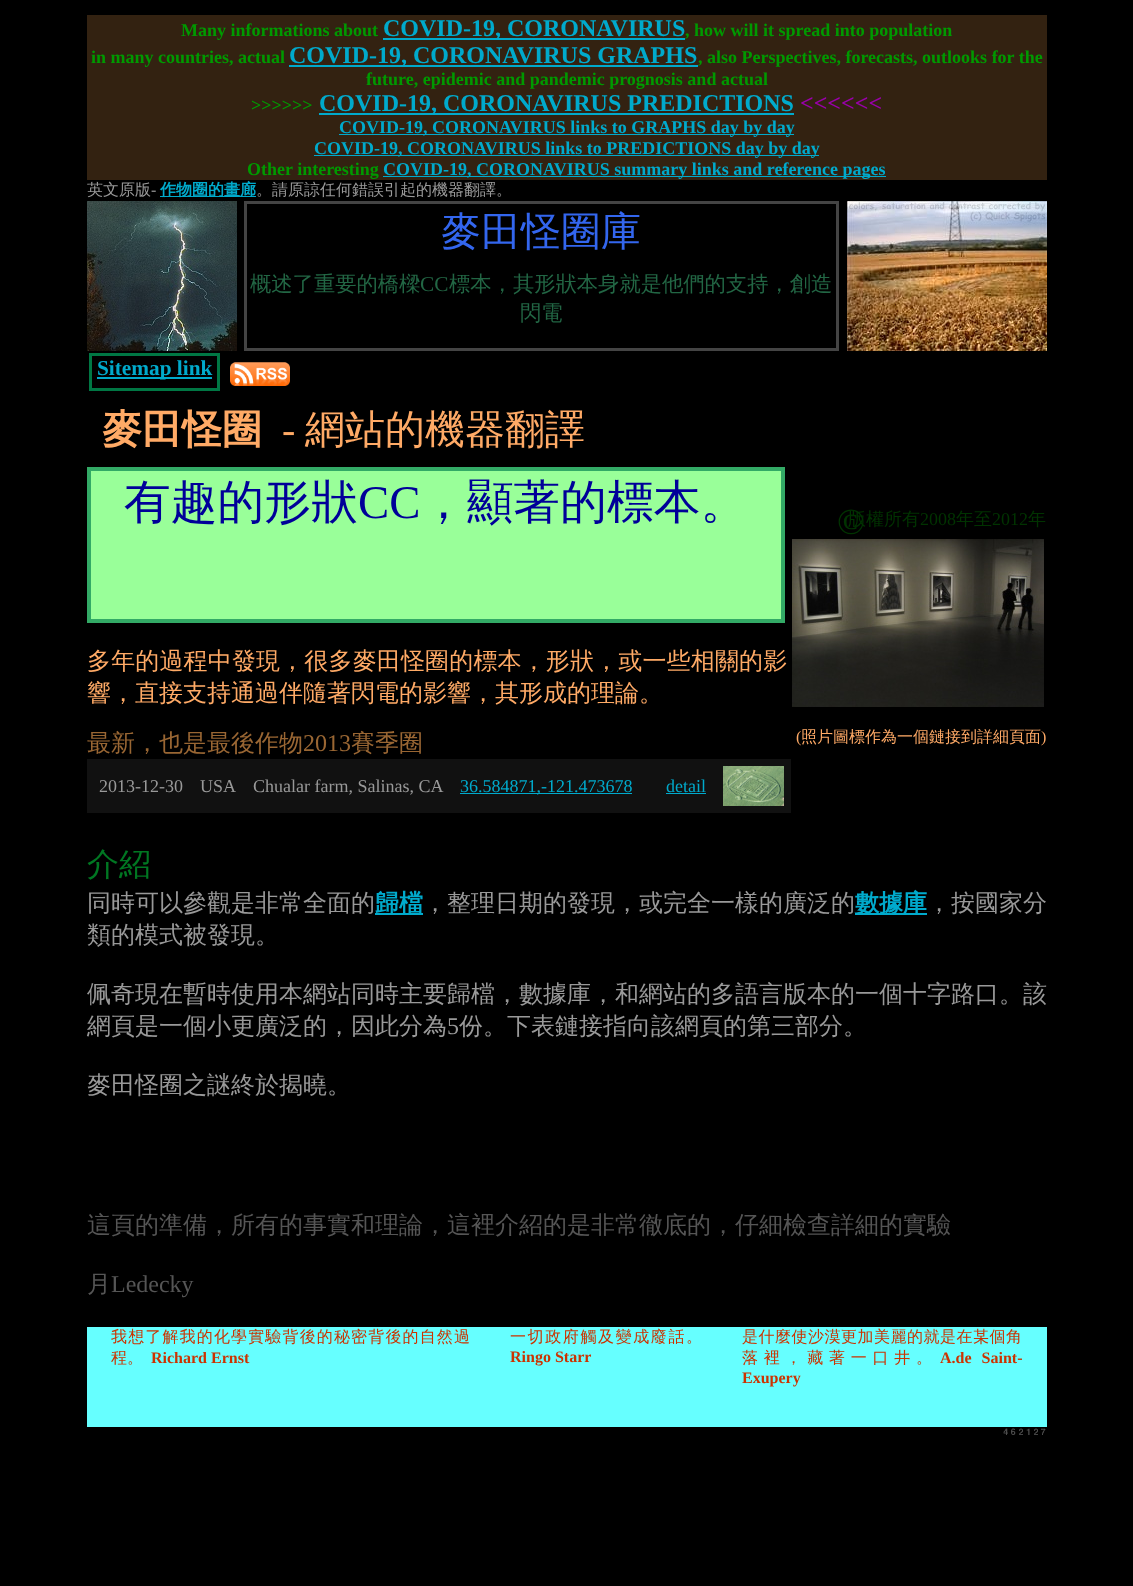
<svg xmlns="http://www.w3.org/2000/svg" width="1133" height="1586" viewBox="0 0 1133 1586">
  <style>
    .t1 { font: bold 18px Liberation Serif; fill: #090; }
    .t2 { font: bold 24px Liberation Serif; fill: #0ac; }
    .t3 { font: bold 24px Liberation Serif; fill: #90a; }
    .t4 { font: bold 18px Liberation Serif; fill: #0ac; }
    .t5 { font: 500 16px WenQuanYi Zen Hei; fill: #999; }
    .t6 { font: 16px Liberation Serif; fill: #999; }
    .t7 { font: bold 16px WenQuanYi Zen Hei; fill: #0ac; }
    .t8 { font: 500 40px WenQuanYi Zen Hei; fill: #36e; }
    .t9 { font: 500 21.3px WenQuanYi Zen Hei; fill: #264; }
    .t10 { font: 21.3px Liberation Serif; fill: #264; }
    .t11 { font: bold 21.3px Liberation Serif; fill: #0ac; }
    .t12 { font: bold 40px WenQuanYi Zen Hei; fill: #fa6; }
    .t13 { font: 40px Liberation Serif; fill: #fa6; }
    .t14 { font: 500 40px WenQuanYi Zen Hei; fill: #fa6; }
    .t15 { font: 500 46.75px WenQuanYi Zen Hei; fill: #009; }
    .t16 { font: 46.75px Liberation Serif; fill: #009; }
    .t17 { font: 500 18px WenQuanYi Zen Hei; fill: #030; }
    .t18 { font: 37px Liberation Serif; fill: #030; }
    .t19 { font: 18px Liberation Serif; fill: #030; }
    .t20 { font: 500 24px WenQuanYi Zen Hei; letter-spacing: 0.15px; fill: #fa6; }
    .t21 { font: 500 24px WenQuanYi Zen Hei; fill: #fa6; }
    .t22 { font: 500 24px WenQuanYi Zen Hei; fill: #963; }
    .t23 { font: 24px Liberation Serif; fill: #963; }
    .t24 { font: 16px Liberation Serif; fill: #fa6; }
    .t25 { font: 500 16px WenQuanYi Zen Hei; fill: #fa6; }
    .t26 { font: 18px Liberation Serif; fill: #999; }
    .t27 { font: 18px Liberation Serif; fill: #0ac; }
    .t28 { font: 500 32px WenQuanYi Zen Hei; fill: #072; }
    .t29 { font: 500 24px WenQuanYi Zen Hei; fill: #999; }
    .t30 { font: bold 24px WenQuanYi Zen Hei; fill: #0ac; }
    .t31 { font: 24px Liberation Serif; fill: #999; }
    .t32 { font: 500 24px WenQuanYi Zen Hei; fill: #555; }
    .t33 { font: 24px Liberation Serif; fill: #555; }
    .t34 { font: 500 16px WenQuanYi Zen Hei; letter-spacing: 1.15px; fill: #c30; }
    .t35 { font: 500 16px WenQuanYi Zen Hei; fill: #c30; }
    .t36 { font: bold 16px Liberation Serif; fill: #c30; }
    .t37 { font: 500 16px WenQuanYi Zen Hei; letter-spacing: 1.6px; fill: #c30; }
    .t38 { font: 500 16px WenQuanYi Zen Hei; letter-spacing: 0.5px; fill: #c30; }
    .t39 { font: 500 16px WenQuanYi Zen Hei; letter-spacing: 5.75px; fill: #c30; }
  </style>
  <rect width="100%" height="100%" fill="#000"/>
  <rect x="87" y="15" width="960" height="165" fill="#321"/>
  <text x="181" y="36" class="t1">Many informations about</text>
  <rect x="383" y="38" width="302" height="2" fill="#0ac"/>
  <text x="383" y="36" class="t2">COVID-19, CORONAVIRUS</text>
  <text x="685" y="36" class="t1">, how will it spread into population</text>
  <text x="91" y="63" class="t1">in many countries, actual</text>
  <rect x="289" y="65" width="409" height="2" fill="#0ac"/>
  <text x="289" y="63" class="t2">COVID-19, CORONAVIRUS GRAPHS</text>
  <text x="698" y="63" class="t1">, also Perspectives, forecasts, outlooks for the</text>
  <text x="366" y="85" class="t1">future, epidemic and pandemic prognosis and actual</text>
  <text x="251" y="111" class="t1">&gt;&gt;&gt;&gt;&gt;&gt;</text>
  <rect x="319" y="113" width="475" height="2" fill="#0ac"/>
  <text x="319" y="111" class="t2">COVID-19, CORONAVIRUS PREDICTIONS</text>
  <text x="800" y="111" class="t3">&lt;&lt;&lt;&lt;&lt;&lt;</text>
  <rect x="339" y="134" width="455" height="1" fill="#0ac"/>
  <text x="339" y="133" class="t4">COVID-19, CORONAVIRUS links to GRAPHS day by day</text>
  <rect x="314" y="155" width="505" height="1" fill="#0ac"/>
  <text x="314" y="154" class="t4">COVID-19, CORONAVIRUS links to PREDICTIONS day by day</text>
  <text x="247" y="175" class="t1">Other interesting</text>
  <rect x="383" y="176" width="503" height="1" fill="#0ac"/>
  <text x="383" y="175" class="t4">COVID-19, CORONAVIRUS summary links and reference pages</text>
  <text x="87" y="195" class="t5">英文原版</text>
  <text x="151" y="195" class="t6">-</text>
  <rect x="160" y="196" width="96" height="1" fill="#0ac"/>
  <text x="160" y="195" class="t7">作物圈的畫廊</text>
  <text x="256" y="195" class="t5">。請原諒任何錯誤引起的機器翻譯。</text>
  <image x="87" y="201" width="150" height="150" href="images/1.png"/>
  <rect x="245.5" y="202.5" width="592" height="147" fill="none" stroke="#444" stroke-width="3"/>
  <text x="441" y="245" class="t8">麥田怪圈庫</text>
  <text x="250" y="291" class="t9">概述了重要的橋樑</text>
  <text x="420" y="291" class="t10">CC</text>
  <text x="449" y="291" class="t9">標本，其形狀本身就是他們的支持，創造</text>
  <text x="520" y="320" class="t9">閃電</text>
  <image x="847" y="201" width="200" height="150" href="images/2.png"/>
  <rect x="90.5" y="354.5" width="128" height="35" fill="none" stroke="#074" stroke-width="3"/>
  <rect x="97" y="377" width="115" height="2" fill="#0ac"/>
  <text x="97" y="375" class="t11">Sitemap link</text>
  <image x="230" y="362" width="60" height="24" href="images/3.png"/>
  <text x="102" y="443" class="t12">麥田怪圈</text>
  <text x="282" y="443" class="t13">-</text>
  <text x="305" y="443" class="t14">網站的機器翻譯</text>
  <rect x="89" y="469" width="694" height="152" fill="#9f9" stroke="#3a6" stroke-width="4"/>
  <text x="124" y="518" class="t15">有趣的形狀</text>
  <text x="358" y="518" class="t16">CC</text>
  <text x="420" y="518" class="t15">，顯著的標本。</text>
  <text x="848" y="525" class="t17">版權所有</text>
  <text x="837" y="534" class="t18">©</text>
  <text x="920" y="525" class="t19">2008</text>
  <text x="956" y="525" class="t17">年至</text>
  <text x="992" y="525" class="t19">2012</text>
  <text x="1028" y="525" class="t17">年</text>
  <text x="87" y="669" class="t20">多年的過程中發現，很多麥田怪圈的標本，形狀，或一些相關的影</text>
  <text x="87" y="701" class="t21">響，直接支持通過伴隨著閃電的影響，其形成的理論。</text>
  <image x="792" y="539" width="252" height="168" href="images/4.png"/>
  <text x="87" y="751" class="t22">最新，也是最後作物</text>
  <text x="303" y="751" class="t23">2013</text>
  <text x="351" y="751" class="t22">賽季圈</text>
  <text x="796" y="742" class="t24">(</text>
  <text x="801" y="742" class="t25">照片圖標作為一個鏈接到詳細頁面</text>
  <text x="1041" y="742" class="t24">)</text>
  <rect x="87" y="759" width="704" height="54" fill="#111"/>
  <text x="99" y="792" class="t26">2013-12-30</text>
  <text x="200" y="792" class="t26">USA</text>
  <text x="253" y="792" class="t26">Chualar farm, Salinas, CA</text>
  <rect x="460" y="793" width="172" height="1" fill="#0ac"/>
  <text x="460" y="792" class="t27">36.584871,-121.473678</text>
  <text x="666" y="792" class="t27">detail</text>
  <rect x="666" y="793" width="40" height="1" fill="#0ac"/>
  <image x="723" y="766" width="61" height="40" href="images/5.png"/>
  <text x="87" y="875" class="t28">介紹</text>
  <text x="87" y="911" class="t29">同時可以參觀是非常全面的</text>
  <rect x="375" y="913" width="48" height="2" fill="#0ac"/>
  <text x="375" y="911" class="t30">歸檔</text>
  <text x="423" y="911" class="t29">，整理日期的發現，或完全一樣的廣泛的</text>
  <rect x="855" y="913" width="72" height="2" fill="#0ac"/>
  <text x="855" y="911" class="t30">數據庫</text>
  <text x="927" y="911" class="t29">，按國家分</text>
  <text x="87" y="943" class="t29">類的模式被發現。</text>
  <text x="87" y="1002" class="t29">佩奇現在暫時使用本網站同時主要歸檔，數據庫，和網站的多語言版本的一個十字路口。該</text>
  <text x="87" y="1034" class="t29">網頁是一個小更廣泛的，因此分為</text>
  <text x="447" y="1034" class="t31">5</text>
  <text x="459" y="1034" class="t29">份。下表鏈接指向該網頁的第三部分。</text>
  <text x="87" y="1093" class="t29">麥田怪圈之謎終於揭曉。</text>
  <text x="87" y="1233" class="t32">這頁的準備，所有的事實和理論，這裡介紹的是非常徹底的，仔細檢查詳細的實驗</text>
  <text x="87" y="1292" class="t32">月</text>
  <text x="111" y="1292" class="t33">Ledecky</text>
  <rect x="87" y="1327" width="960" height="100" fill="#6ff"/>
  <text x="111" y="1342" class="t34">我想了解我的化學實驗背後的秘密背後的自然過</text>
  <text x="111" y="1363" class="t35">程。</text>
  <text x="151" y="1363" class="t36">Richard Ernst</text>
  <text x="510" y="1342" class="t37">一切政府觸及變成廢話。</text>
  <text x="510" y="1362" class="t36">Ringo Starr</text>
  <text x="742" y="1342" class="t38">是什麼使沙漠更加美麗的就是在某個角</text>
  <text x="742" y="1363" class="t39">落裡，藏著一口井。</text>
  <text x="940" y="1363" word-spacing="6" class="t36">A.de Saint-</text>
  <text x="742" y="1383" class="t36">Exupery</text>
  <image x="1003" y="1428" width="43" height="7" href="images/6.png"/>
</svg>
